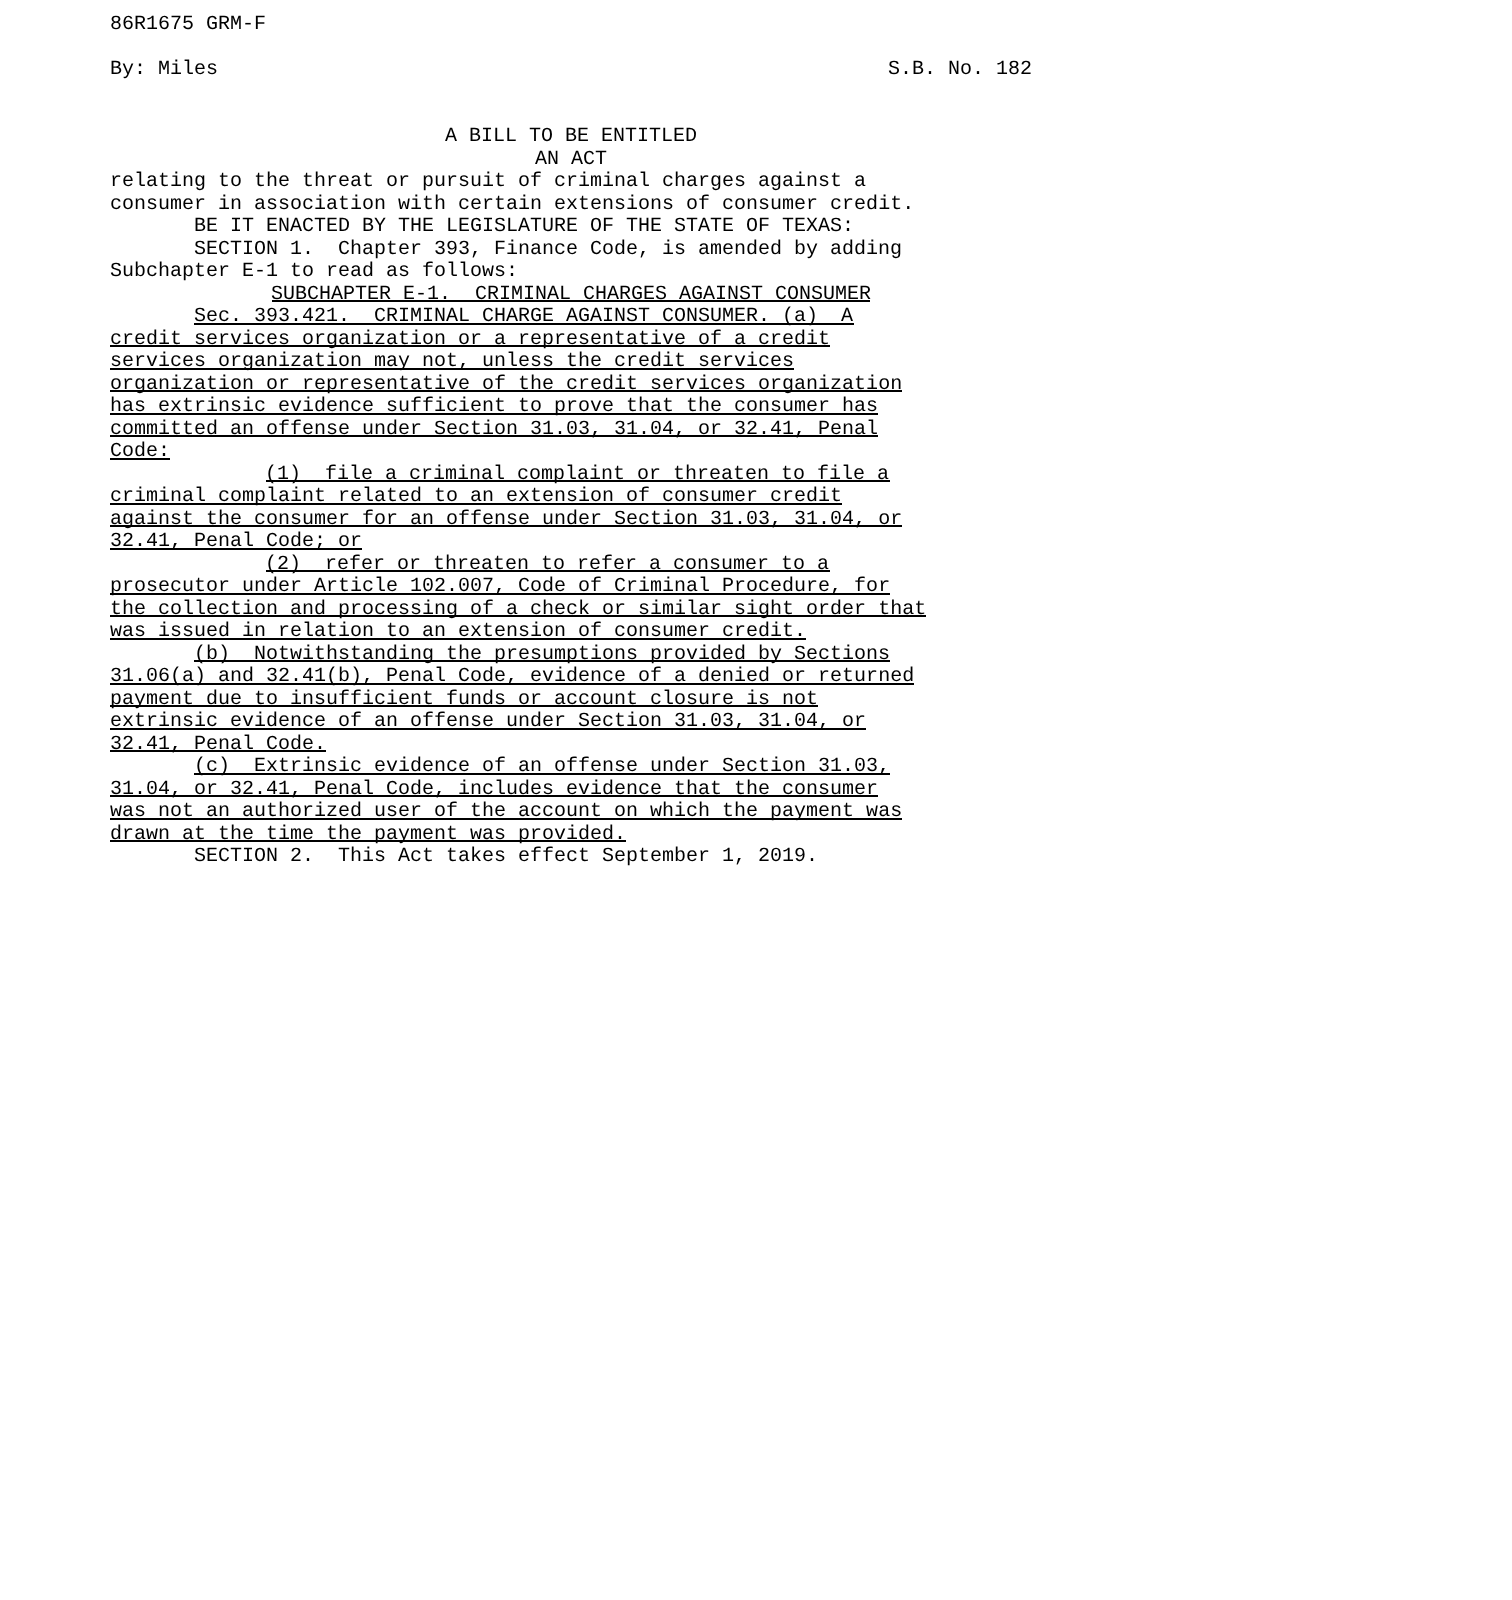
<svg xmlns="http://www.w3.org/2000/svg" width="1512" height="1600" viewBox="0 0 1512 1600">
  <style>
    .t1 { font: 20px Liberation Mono; fill: #000; }
  </style>
  <rect width="100%" height="100%" fill="#fff"/>
  <text x="110" y="29" class="t1">86R1675 GRM-F</text>
  <text x="110" y="74" class="t1">By: Miles</text>
  <text x="888" y="74" class="t1">S.B. No. 182</text>
  <text x="445" y="141" class="t1">A BILL TO BE ENTITLED</text>
  <text x="535" y="164" class="t1">AN ACT</text>
  <text x="110" y="186" class="t1">relating to the threat or pursuit of criminal charges against a</text>
  <text x="110" y="209" class="t1">consumer in association with certain extensions of consumer credit.</text>
  <text x="194" y="231" class="t1">BE IT ENACTED BY THE LEGISLATURE OF THE STATE OF TEXAS:</text>
  <text x="194" y="254" class="t1" xml:space="preserve">SECTION 1.  Chapter 393, Finance Code, is amended by adding</text>
  <text x="110" y="276" class="t1">Subchapter E-1 to read as follows:</text>
  <text x="271" y="299" class="t1">SUBCHAPTER E-1.</text>
  <rect x="272" y="300" width="598" height="2" fill="#000"/>
  <text x="475" y="299" class="t1">CRIMINAL CHARGES AGAINST CONSUMER</text>
  <text x="194" y="321" class="t1">Sec. 393.421.</text>
  <rect x="194" y="323" width="660" height="2" fill="#000"/>
  <text x="374" y="321" class="t1">CRIMINAL CHARGE AGAINST CONSUMER. (a)</text>
  <text x="841" y="321" class="t1">A</text>
  <rect x="110" y="345" width="720" height="2" fill="#000"/>
  <text x="110" y="344" class="t1">credit services organization or a representative of a credit</text>
  <rect x="110" y="368" width="684" height="2" fill="#000"/>
  <text x="110" y="366" class="t1">services organization may not, unless the credit services</text>
  <rect x="110" y="390" width="792" height="2" fill="#000"/>
  <text x="110" y="389" class="t1">organization or representative of the credit services organization</text>
  <rect x="110" y="413" width="768" height="2" fill="#000"/>
  <text x="110" y="411" class="t1">has extrinsic evidence sufficient to prove that the consumer has</text>
  <rect x="110" y="435" width="768" height="2" fill="#000"/>
  <text x="110" y="434" class="t1">committed an offense under Section 31.03, 31.04, or 32.41, Penal</text>
  <text x="110" y="456" class="t1">Code:</text>
  <rect x="110" y="458" width="60" height="2" fill="#000"/>
  <rect x="266" y="480" width="624" height="2" fill="#000"/>
  <text x="265" y="479" class="t1">(1)</text>
  <text x="325" y="479" class="t1">file a criminal complaint or threaten to file a</text>
  <rect x="110" y="503" width="732" height="2" fill="#000"/>
  <text x="110" y="501" class="t1">criminal complaint related to an extension of consumer credit</text>
  <rect x="110" y="525" width="792" height="2" fill="#000"/>
  <text x="110" y="524" class="t1">against the consumer for an offense under Section 31.03, 31.04, or</text>
  <rect x="110" y="548" width="252" height="2" fill="#000"/>
  <text x="110" y="546" class="t1">32.41, Penal Code; or</text>
  <rect x="266" y="570" width="564" height="2" fill="#000"/>
  <text x="265" y="569" class="t1">(2)</text>
  <text x="325" y="569" class="t1">refer or threaten to refer a consumer to a</text>
  <rect x="110" y="593" width="780" height="2" fill="#000"/>
  <text x="110" y="591" class="t1">prosecutor under Article 102.007, Code of Criminal Procedure, for</text>
  <rect x="110" y="615" width="816" height="2" fill="#000"/>
  <text x="110" y="614" class="t1">the collection and processing of a check or similar sight order that</text>
  <text x="110" y="636" class="t1">was issued in relation to an extension of consumer credit.</text>
  <rect x="110" y="638" width="696" height="2" fill="#000"/>
  <rect x="194" y="660" width="696" height="2" fill="#000"/>
  <text x="194" y="659" class="t1">(b)</text>
  <text x="254" y="659" class="t1">Notwithstanding the presumptions provided by Sections</text>
  <rect x="110" y="683" width="804" height="2" fill="#000"/>
  <text x="110" y="681" class="t1">31.06(a) and 32.41(b), Penal Code, evidence of a denied or returned</text>
  <rect x="110" y="705" width="708" height="2" fill="#000"/>
  <text x="110" y="704" class="t1">payment due to insufficient funds or account closure is not</text>
  <rect x="110" y="728" width="756" height="2" fill="#000"/>
  <text x="110" y="726" class="t1">extrinsic evidence of an offense under Section 31.03, 31.04, or</text>
  <rect x="110" y="750" width="216" height="2" fill="#000"/>
  <text x="110" y="749" class="t1">32.41, Penal Code.</text>
  <rect x="194" y="773" width="696" height="2" fill="#000"/>
  <text x="194" y="771" class="t1">(c)</text>
  <text x="254" y="771" class="t1">Extrinsic evidence of an offense under Section 31.03,</text>
  <rect x="110" y="795" width="768" height="2" fill="#000"/>
  <text x="110" y="794" class="t1">31.04, or 32.41, Penal Code, includes evidence that the consumer</text>
  <rect x="110" y="818" width="792" height="2" fill="#000"/>
  <text x="110" y="816" class="t1">was not an authorized user of the account on which the payment was</text>
  <rect x="110" y="840" width="516" height="2" fill="#000"/>
  <text x="110" y="839" class="t1">drawn at the time the payment was provided.</text>
  <text x="194" y="861" class="t1" xml:space="preserve">SECTION 2.  This Act takes effect September 1, 2019.</text>
</svg>
